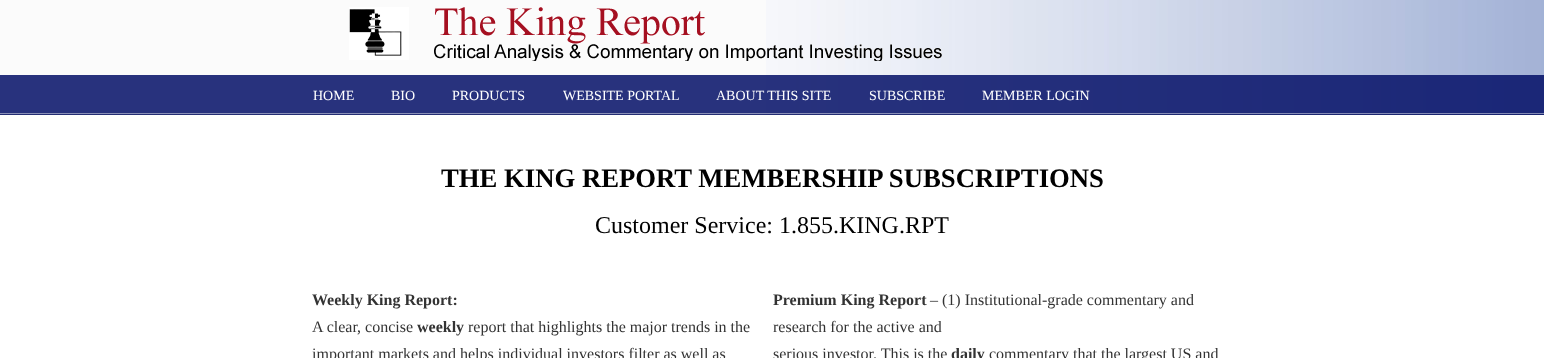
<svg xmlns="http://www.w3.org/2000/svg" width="1544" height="358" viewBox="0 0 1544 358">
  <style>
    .t1 { font: 14px Liberation Serif; fill: #fff; }
    .t2 { font: bold 26.7px Liberation Serif; fill: #000; }
    .t3 { font: 24px Liberation Serif; fill: #000; }
    .t4 { font: bold 16px Liberation Serif; fill: #333; }
    .t5 { font: 16px Liberation Serif; fill: #333; }
  </style>
  <rect width="100%" height="100%" fill="#fbfbfb"/>
  <image x="766" y="0" width="778" height="115" href="images/1.png"/>
  <image x="349" y="7" width="593" height="54" href="images/2.png"/>
  <rect x="0" y="75" width="1544" height="40" fill="#020e66d9"/>
  <image x="0" y="113" width="1544" height="2" href="images/3.png"/>
  <text x="313" y="100" class="t1">HOME</text>
  <text x="391" y="100" class="t1">BIO</text>
  <text x="452" y="100" class="t1">PRODUCTS</text>
  <text x="563" y="100" class="t1">WEBSITE PORTAL</text>
  <text x="716" y="100" class="t1">ABOUT THIS SITE</text>
  <text x="869" y="100" class="t1">SUBSCRIBE</text>
  <text x="982" y="100" class="t1">MEMBER LOGIN</text>
  <rect x="0" y="115" width="1544" height="243" fill="#fff"/>
  <text x="441" y="187" class="t2">THE KING REPORT MEMBERSHIP SUBSCRIPTIONS</text>
  <text x="595" y="233" class="t3">Customer Service: 1.855.KING.RPT</text>
  <text x="312" y="305" class="t4">Weekly King Report:</text>
  <text x="312" y="332" class="t5">A clear, concise</text>
  <text x="417" y="332" class="t4">weekly</text>
  <text x="468" y="332" class="t5">report that highlights the major trends in the</text>
  <text x="312" y="359" class="t5">important markets and helps individual investors filter as well as</text>
  <text x="773" y="305" class="t4">Premium King Report</text>
  <text x="930" y="305" class="t5">– (1) Institutional-grade commentary and</text>
  <text x="773" y="332" class="t5">research for the active and</text>
  <text x="773" y="359" class="t5">serious investor. This is the</text>
  <text x="951" y="359" class="t4">daily</text>
  <text x="989" y="359" class="t5">commentary that the largest US and</text>
</svg>
